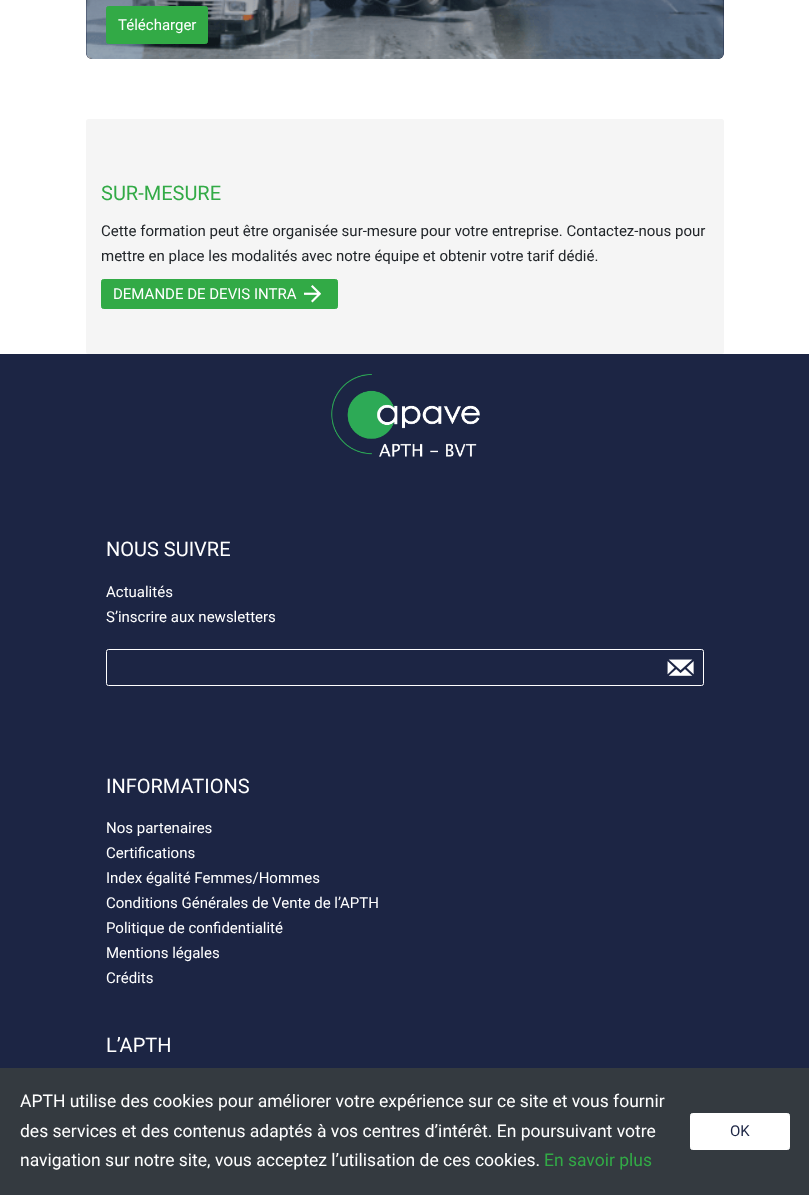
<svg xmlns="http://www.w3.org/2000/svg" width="809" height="1195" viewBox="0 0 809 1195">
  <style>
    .t1 { font: 15px Roboto; fill: #fff; }
    .t2 { font: 20px Roboto; fill: #32aa46; }
    .t3 { font: 15px Roboto; fill: #212529; }
    .t4 { font: 17.5px Roboto; fill: #fff; }
    .t5 { font: 17.5px Roboto; fill: #32aa46; }
    .t6 { font: 15px Roboto; fill: #1c2544; }
    .t7 { font: 20px Roboto; fill: #fff; }
  </style>
  <rect width="100%" height="100%" fill="#fff"/>
  <rect x="86" y="-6" width="638" height="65" rx="6" fill="#1c2544"/>
  <image x="86" y="0" width="638" height="59" href="images/1.png"/>
  <rect x="106.5" y="6.5" width="101" height="37" rx="2" fill="#32aa46" stroke="#32aa46"/>
  <text x="118" y="30" class="t1">Télécharger</text>
  <rect x="86" y="119" width="638" height="235" rx="2.5" fill="#f5f5f5"/>
  <text x="101" y="200" class="t2">SUR-MESURE</text>
  <text x="101" y="236" class="t3">Cette formation peut être organisée sur-mesure pour votre entreprise. Contactez-nous pour</text>
  <text x="101" y="261" class="t3">mettre en place les modalités avec notre équipe et obtenir votre tarif dédié.</text>
  <rect x="101.5" y="279.5" width="236" height="29" rx="2" fill="#32aa46" stroke="#32aa46"/>
  <text x="113" y="299" class="t1">DEMANDE DE DEVIS INTRA</text>
  <image x="304" y="285" width="17" height="18" href="images/2.png"/>
  <rect x="0" y="1068" width="809" height="127" fill="#343a40"/>
  <text x="20" y="1107" class="t4">APTH utilise des cookies pour améliorer votre expérience sur ce site et vous fournir</text>
  <text x="20" y="1137" class="t4">des services et des contenus adaptés à vos centres d’intérêt. En poursuivant votre</text>
  <text x="20" y="1166" class="t4">navigation sur notre site, vous acceptez l’utilisation de ces cookies.</text>
  <text x="544" y="1166" class="t5">En savoir plus</text>
  <rect x="690.5" y="1113.5" width="99" height="36" rx="2" fill="#fff" stroke="#fff"/>
  <text x="730" y="1136" class="t6">OK</text>
  <rect x="0" y="354" width="809" height="714" fill="#1c2544"/>
  <image x="331" y="374" width="149" height="83" href="images/3.png"/>
  <text x="106" y="556" class="t7">NOUS SUIVRE</text>
  <text x="106" y="597" class="t1">Actualités</text>
  <text x="106" y="622" class="t1">S’inscrire aux newsletters</text>
  <rect x="106.5" y="649.5" width="597" height="36" rx="2" fill="none" stroke="#fff"/>
  <image x="667" y="659" width="27" height="17" href="images/4.png"/>
  <text x="106" y="793" class="t7">INFORMATIONS</text>
  <text x="106" y="833" class="t1">Nos partenaires</text>
  <text x="106" y="858" class="t1">Certifications</text>
  <text x="106" y="883" class="t1">Index égalité Femmes/Hommes</text>
  <text x="106" y="908" class="t1">Conditions Générales de Vente de l’APTH</text>
  <text x="106" y="933" class="t1">Politique de confidentialité</text>
  <text x="106" y="958" class="t1">Mentions légales</text>
  <text x="106" y="983" class="t1">Crédits</text>
  <text x="106" y="1052" class="t7">L’APTH</text>
</svg>
